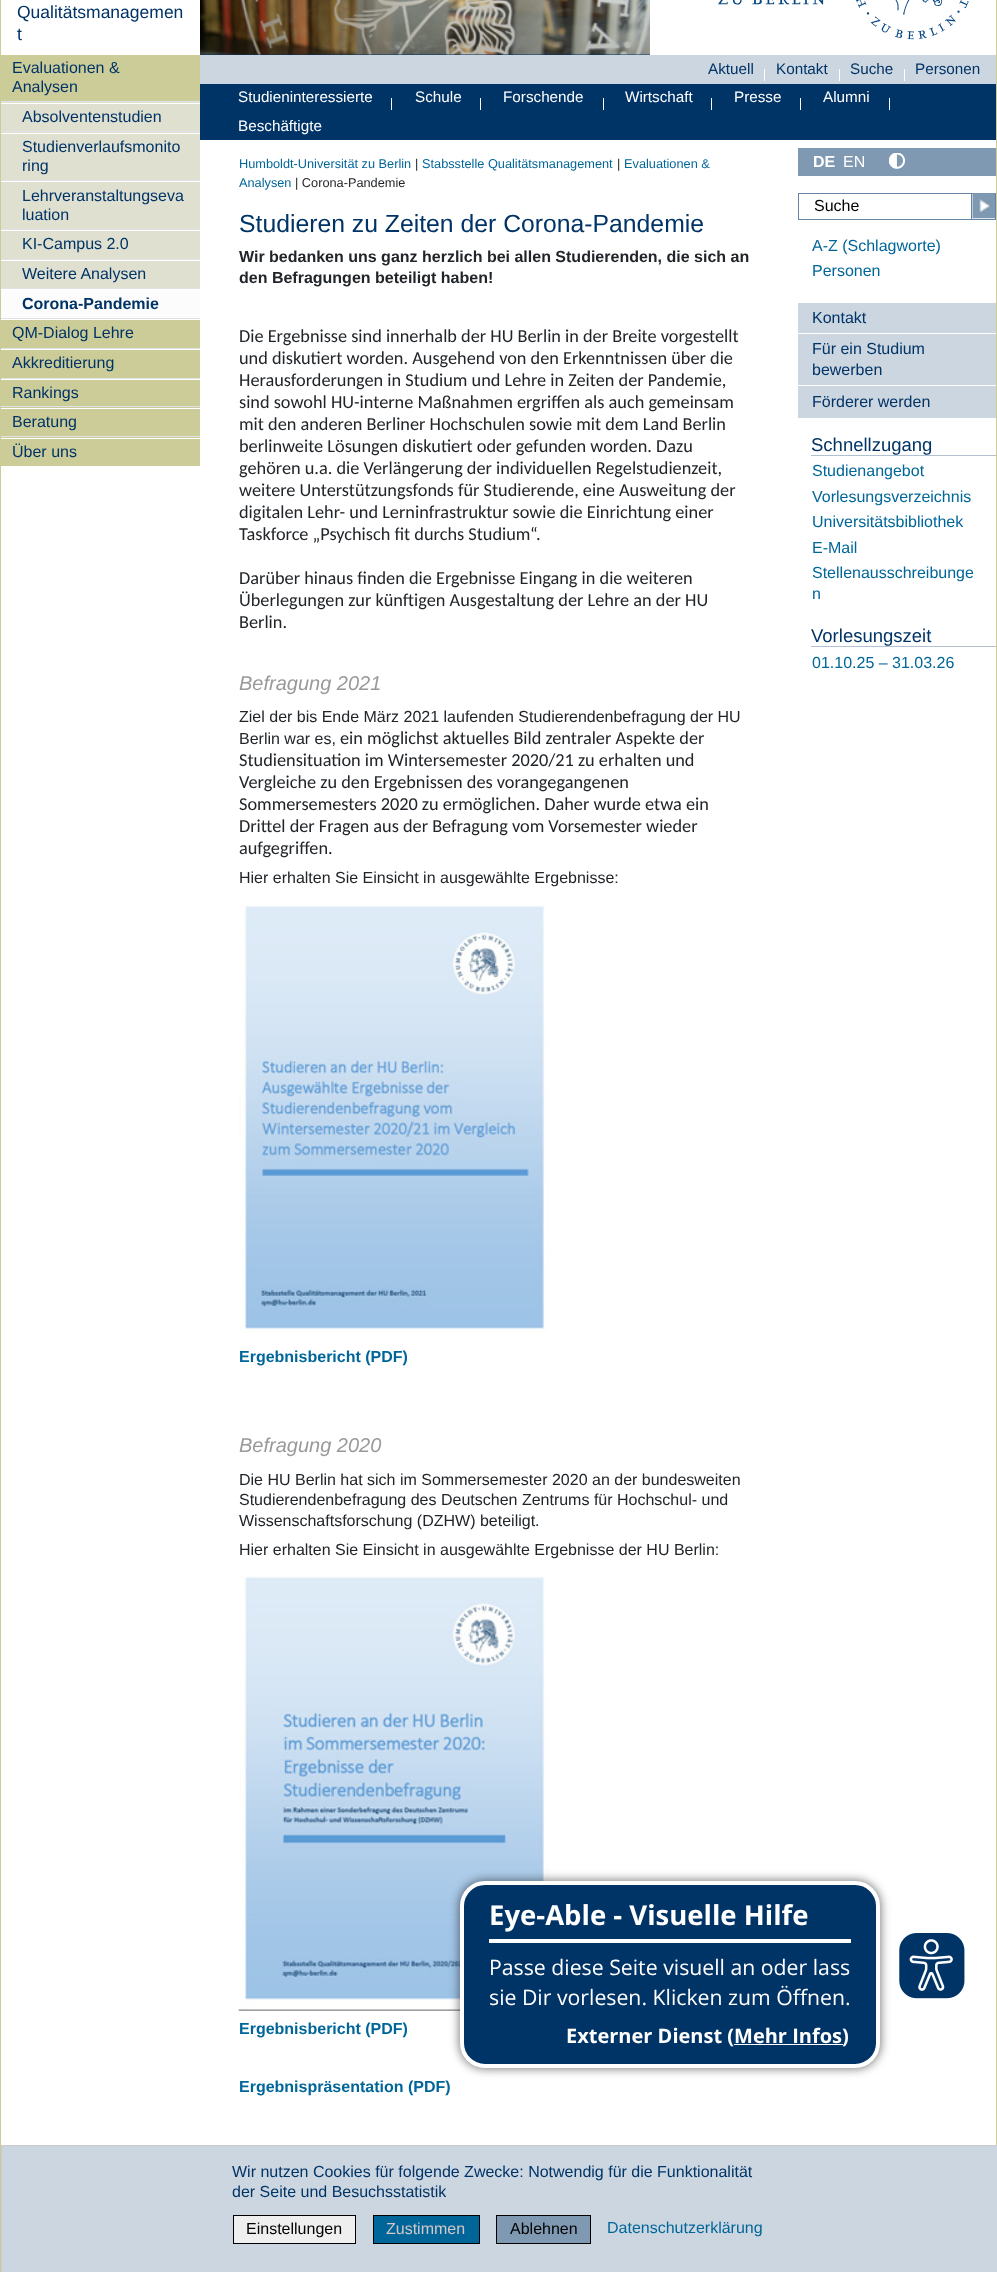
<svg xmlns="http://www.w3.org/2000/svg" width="997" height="2272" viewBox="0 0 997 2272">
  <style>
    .t1 { font: 17.5px Liberation Sans; fill: #036; }
    .t2 { font: 16px Liberation Sans; fill: #036; }
    .t3 { font: bold 16px Liberation Sans; fill: #036; }
    .t4 { font: 15.25px Liberation Sans; fill: #036; }
    .t5 { font: 15.25px Liberation Sans; fill: #fff; }
    .t6 { font: 12.75px Liberation Sans; fill: #069; }
    .t7 { font: 12.75px Liberation Sans; fill: #212529; }
    .t8 { font: 24.75px Liberation Sans; fill: #036; }
    .t9 { font: bold 16px Liberation Sans; fill: #212529; }
    .t10 { font: 18.3px Carlito; fill: #212529; }
    .t11 { font: italic 20px Liberation Sans; fill: #999; }
    .t12 { font: 16px Liberation Sans; fill: #212529; }
    .t13 { font: bold 16px Liberation Sans; fill: #069; }
    .t14 { font: bold 16px Liberation Sans; fill: #fff; }
    .t15 { font: 16px Liberation Sans; fill: #fff; }
    .t16 { font: 16px Liberation Sans; fill: #000; }
    .t17 { font: 16px Liberation Sans; fill: #069; }
    .t18 { font: 18.5px Liberation Sans; fill: #036; }
    .t19 { font: bold 27.5px Open Sans; fill: #fff; }
    .t20 { font: 21.25px Open Sans; fill: #fff; }
    .t21 { font: bold 20px Open Sans; fill: #fff; }
    .t22 { font: 16px Liberation Sans; fill: #d5c7c7; }
  </style>
  <rect width="100%" height="100%" fill="#fff"/>
  <rect x="200" y="54" width="450" height="1" fill="#036"/>
  <image x="200" y="0" width="450" height="55" href="images/1.png"/>
  <image x="718" y="0" width="251" height="40" href="images/2.png"/>
  <rect x="996" y="0" width="1" height="2145" fill="#cc9"/>
  <rect x="0" y="0" width="1" height="2272" fill="#cc9"/>
  <text x="17" y="18" class="t1">Qualitätsmanagemen</text>
  <text x="17" y="40" class="t1">t</text>
  <rect x="1" y="55" width="199" height="46" fill="#cc9"/>
  <text x="12" y="73" class="t2">Evaluationen &amp;</text>
  <text x="12" y="92" class="t2">Analysen</text>
  <rect x="1" y="102" width="199" height="29" fill="#e0e0d1"/>
  <rect x="1" y="101" width="199" height="1" fill="#dee2e6"/>
  <rect x="1" y="103" width="199" height="1" fill="#fff"/>
  <text x="22" y="122" class="t2">Absolventenstudien</text>
  <rect x="1" y="132" width="199" height="48" fill="#e0e0d1"/>
  <rect x="1" y="131" width="199" height="1" fill="#dee2e6"/>
  <rect x="1" y="133" width="199" height="1" fill="#fff"/>
  <text x="22" y="152" class="t2">Studienverlaufsmonito</text>
  <text x="22" y="171" class="t2">ring</text>
  <rect x="1" y="182" width="199" height="47" fill="#e0e0d1"/>
  <rect x="1" y="180" width="199" height="1" fill="#dee2e6"/>
  <text x="22" y="201" class="t2">Lehrveranstaltungseva</text>
  <text x="22" y="220" class="t2">luation</text>
  <rect x="1" y="231" width="199" height="28" fill="#e0e0d1"/>
  <rect x="1" y="229" width="199" height="1" fill="#dee2e6"/>
  <text x="22" y="249" class="t2">KI-Campus 2.0</text>
  <rect x="1" y="261" width="199" height="27" fill="#e0e0d1"/>
  <rect x="1" y="259" width="199" height="1" fill="#dee2e6"/>
  <text x="22" y="279" class="t2">Weitere Analysen</text>
  <rect x="1" y="288" width="199" height="1" fill="#dee2e6"/>
  <rect x="1" y="290" width="199" height="28" fill="#fcfcfd"/>
  <text x="22" y="309" class="t3">Corona-Pandemie</text>
  <rect x="1" y="320" width="199" height="28" fill="#cc9"/>
  <rect x="1" y="318" width="199" height="1" fill="#dee2e6"/>
  <text x="12" y="338" class="t2">QM-Dialog Lehre</text>
  <rect x="1" y="350" width="199" height="28" fill="#cc9"/>
  <rect x="1" y="348" width="199" height="1" fill="#dee2e6"/>
  <text x="12" y="368" class="t2">Akkreditierung</text>
  <rect x="1" y="380" width="199" height="26" fill="#cc9"/>
  <rect x="1" y="378" width="199" height="1" fill="#dee2e6"/>
  <text x="12" y="398" class="t2">Rankings</text>
  <rect x="1" y="407" width="199" height="29" fill="#cc9"/>
  <rect x="1" y="406" width="199" height="1" fill="#dee2e6"/>
  <rect x="1" y="408" width="199" height="1" fill="#fff"/>
  <text x="12" y="427" class="t2">Beratung</text>
  <rect x="1" y="437" width="199" height="29" fill="#cc9"/>
  <rect x="1" y="436" width="199" height="1" fill="#dee2e6"/>
  <rect x="1" y="438" width="199" height="1" fill="#fff"/>
  <text x="12" y="457" class="t2">Über uns</text>
  <rect x="200" y="55" width="796" height="29" fill="#ccd6e0"/>
  <text x="708" y="74" class="t4">Aktuell</text>
  <rect x="764" y="69" width="1" height="12" fill="#fff"/>
  <text x="776" y="74" class="t4">Kontakt</text>
  <rect x="839" y="69" width="1" height="12" fill="#fff"/>
  <text x="850" y="74" class="t4">Suche</text>
  <rect x="904" y="69" width="1" height="12" fill="#fff"/>
  <text x="915" y="74" class="t4">Personen</text>
  <rect x="200" y="84" width="796" height="56" fill="#036"/>
  <text x="238" y="102" class="t5">Studieninteressierte</text>
  <rect x="391" y="98" width="1" height="12" fill="#fff"/>
  <text x="415" y="102" class="t5">Schule</text>
  <rect x="480" y="98" width="1" height="12" fill="#fff"/>
  <text x="503" y="102" class="t5">Forschende</text>
  <rect x="603" y="98" width="1" height="12" fill="#fff"/>
  <text x="625" y="102" class="t5">Wirtschaft</text>
  <rect x="711" y="98" width="1" height="12" fill="#fff"/>
  <text x="734" y="102" class="t5">Presse</text>
  <rect x="800" y="98" width="1" height="12" fill="#fff"/>
  <text x="823" y="102" class="t5">Alumni</text>
  <rect x="889" y="98" width="1" height="12" fill="#fff"/>
  <text x="238" y="131" class="t5">Beschäftigte</text>
  <text x="239" y="168" class="t6">Humboldt-Universität zu Berlin</text>
  <text x="415" y="168" class="t7">|</text>
  <text x="422" y="168" class="t6">Stabsstelle Qualitätsmanagement</text>
  <text x="617" y="168" class="t7">|</text>
  <text x="624" y="168" class="t6">Evaluationen &amp;</text>
  <text x="239" y="187" class="t6">Analysen</text>
  <text x="295" y="187" class="t7">| Corona-Pandemie</text>
  <text x="239" y="232" class="t8">Studieren zu Zeiten der Corona-Pandemie</text>
  <text x="239" y="262" class="t9">Wir bedanken uns ganz herzlich bei allen Studierenden, die sich an</text>
  <text x="239" y="283" class="t9">den Befragungen beteiligt haben!</text>
  <text x="239" y="342" class="t10">Die Ergebnisse sind innerhalb der HU Berlin in der Breite vorgestellt</text>
  <text x="239" y="364" class="t10">und diskutiert worden. Ausgehend von den Erkenntnissen über die</text>
  <text x="239" y="386" class="t10">Herausforderungen in Studium und Lehre in Zeiten der Pandemie,</text>
  <text x="239" y="408" class="t10">sind sowohl HU-interne Maßnahmen ergriffen als auch gemeinsam</text>
  <text x="239" y="430" class="t10">mit den anderen Berliner Hochschulen sowie mit dem Land Berlin</text>
  <text x="239" y="452" class="t10">berlinweite Lösungen diskutiert oder gefunden worden. Dazu</text>
  <text x="239" y="474" class="t10">gehören u.a. die Verlängerung der individuellen Regelstudienzeit,</text>
  <text x="239" y="496" class="t10">weitere Unterstützungsfonds für Studierende, eine Ausweitung der</text>
  <text x="239" y="518" class="t10">digitalen Lehr- und Lerninfrastruktur sowie die Einrichtung einer</text>
  <text x="239" y="540" class="t10">Taskforce „Psychisch fit durchs Studium“.</text>
  <text x="239" y="584" class="t10">Darüber hinaus finden die Ergebnisse Eingang in die weiteren</text>
  <text x="239" y="606" class="t10">Überlegungen zur künftigen Ausgestaltung der Lehre an der HU</text>
  <text x="239" y="628" class="t10">Berlin.</text>
  <text x="239" y="690" class="t11">Befragung 2021</text>
  <text x="239" y="722" class="t12">Ziel der bis Ende März 2021 laufenden Studierendenbefragung der HU</text>
  <text x="239" y="744" class="t12">Berlin war es,</text>
  <text x="340" y="744" class="t10">ein möglichst aktuelles Bild zentraler Aspekte der</text>
  <text x="239" y="766" class="t10">Studiensituation im Wintersemester 2020/21 zu erhalten und</text>
  <text x="239" y="788" class="t10">Vergleiche zu den Ergebnissen des vorangegangenen</text>
  <text x="239" y="810" class="t10">Sommersemesters 2020 zu ermöglichen. Daher wurde etwa ein</text>
  <text x="239" y="832" class="t10">Drittel der Fragen aus der Befragung vom Vorsemester wieder</text>
  <text x="239" y="854" class="t10">aufgegriffen.</text>
  <text x="239" y="883" class="t12">Hier erhalten Sie Einsicht in ausgewählte Ergebnisse:</text>
  <image x="239" y="905" width="310" height="427" href="images/3.png"/>
  <text x="239" y="1362" class="t13">Ergebnisbericht (PDF)</text>
  <text x="239" y="1452" class="t11">Befragung 2020</text>
  <text x="239" y="1485" class="t12">Die HU Berlin hat sich im Sommersemester 2020 an der bundesweiten</text>
  <text x="239" y="1505" class="t12">Studierendenbefragung des Deutschen Zentrums für Hochschul- und</text>
  <text x="239" y="1526" class="t12">Wissenschaftsforschung (DZHW) beteiligt.</text>
  <text x="239" y="1555" class="t12">Hier erhalten Sie Einsicht in ausgewählte Ergebnisse der HU Berlin:</text>
  <image x="238" y="1576" width="314" height="435" href="images/4.png"/>
  <text x="239" y="2034" class="t13">Ergebnisbericht (PDF)</text>
  <text x="239" y="2092" class="t13">Ergebnispräsentation (PDF)</text>
  <rect x="798" y="148" width="198" height="28" fill="#8099b2"/>
  <text x="813" y="167" class="t14">DE</text>
  <text x="843" y="167" class="t15">EN</text>
  <image x="889" y="153" width="16" height="16" href="images/5.png"/>
  <rect x="798.5" y="193.5" width="197" height="26" fill="none" stroke="#6685a3"/>
  <text x="814" y="211" class="t16">Suche</text>
  <rect x="971.5" y="193.5" width="24" height="26" fill="none" stroke="#6685a3"/>
  <image x="972" y="193" width="23" height="26" href="images/6.png"/>
  <text x="812" y="251" class="t17">A-Z (Schlagworte)</text>
  <text x="812" y="276" class="t17">Personen</text>
  <rect x="798" y="303" width="198" height="30" fill="#ccd6e0"/>
  <text x="812" y="323" class="t2">Kontakt</text>
  <rect x="798" y="334" width="198" height="51" fill="#ccd6e0"/>
  <text x="812" y="354" class="t2">Für ein Studium</text>
  <text x="812" y="375" class="t2">bewerben</text>
  <rect x="798" y="386" width="198" height="32" fill="#ccd6e0"/>
  <text x="812" y="407" class="t2">Förderer werden</text>
  <rect x="811" y="455" width="185" height="1" fill="#b2c1d1"/>
  <text x="811" y="451" class="t18">Schnellzugang</text>
  <text x="812" y="476" class="t17">Studienangebot</text>
  <text x="812" y="502" class="t17">Vorlesungsverzeichnis</text>
  <text x="812" y="527" class="t17">Universitätsbibliothek</text>
  <text x="812" y="553" class="t17">E-Mail</text>
  <text x="812" y="578" class="t17">Stellenausschreibunge</text>
  <text x="812" y="599" class="t17">n</text>
  <rect x="811" y="646" width="185" height="1" fill="#b2c1d1"/>
  <text x="811" y="642" class="t18">Vorlesungszeit</text>
  <text x="812" y="668" class="t17">01.10.25 – 31.03.26</text>
  <rect x="459" y="1880" width="422" height="189" rx="26" fill="#00000080" filter="blur(5px)"/>
  <rect x="462" y="1883" width="416" height="183" rx="23" fill="#036" stroke="#fff" stroke-width="4"/>
  <rect x="489" y="1939" width="362" height="4" fill="#fff"/>
  <text x="489" y="1925" class="t19">Eye-Able - Visuelle Hilfe</text>
  <text x="489" y="1975" class="t20">Passe diese Seite visuell an oder lass</text>
  <text x="489" y="2005" class="t20">sie Dir vorlesen. Klicken zum Öffnen.</text>
  <text x="566" y="2043" class="t21">Externer Dienst (Mehr Infos</text>
  <rect x="734" y="2044" width="109" height="1" fill="#fff"/>
  <text x="842" y="2043" class="t21">)</text>
  <image x="899" y="1933" width="66" height="66" href="images/7.png"/>
  <rect x="1.5" y="2145.5" width="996" height="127" fill="#ccd6e0" stroke="#ccc"/>
  <text x="232" y="2177" class="t2">Wir nutzen Cookies für folgende Zwecke: Notwendig für die Funktionalität</text>
  <text x="232" y="2197" class="t2">der Seite und Besuchsstatistik</text>
  <rect x="233.5" y="2215.5" width="122" height="28" fill="#efefef" stroke="#000"/>
  <text x="246" y="2234" class="t16">Einstellungen</text>
  <rect x="373.5" y="2215.5" width="106" height="28" fill="#069" stroke="#000"/>
  <text x="386" y="2234" class="t22">Zustimmen</text>
  <rect x="496.5" y="2215.5" width="94" height="28" fill="#8099b2" stroke="#000"/>
  <text x="510" y="2234" class="t16">Ablehnen</text>
  <text x="607" y="2233" class="t17">Datenschutzerklärung</text>
</svg>
